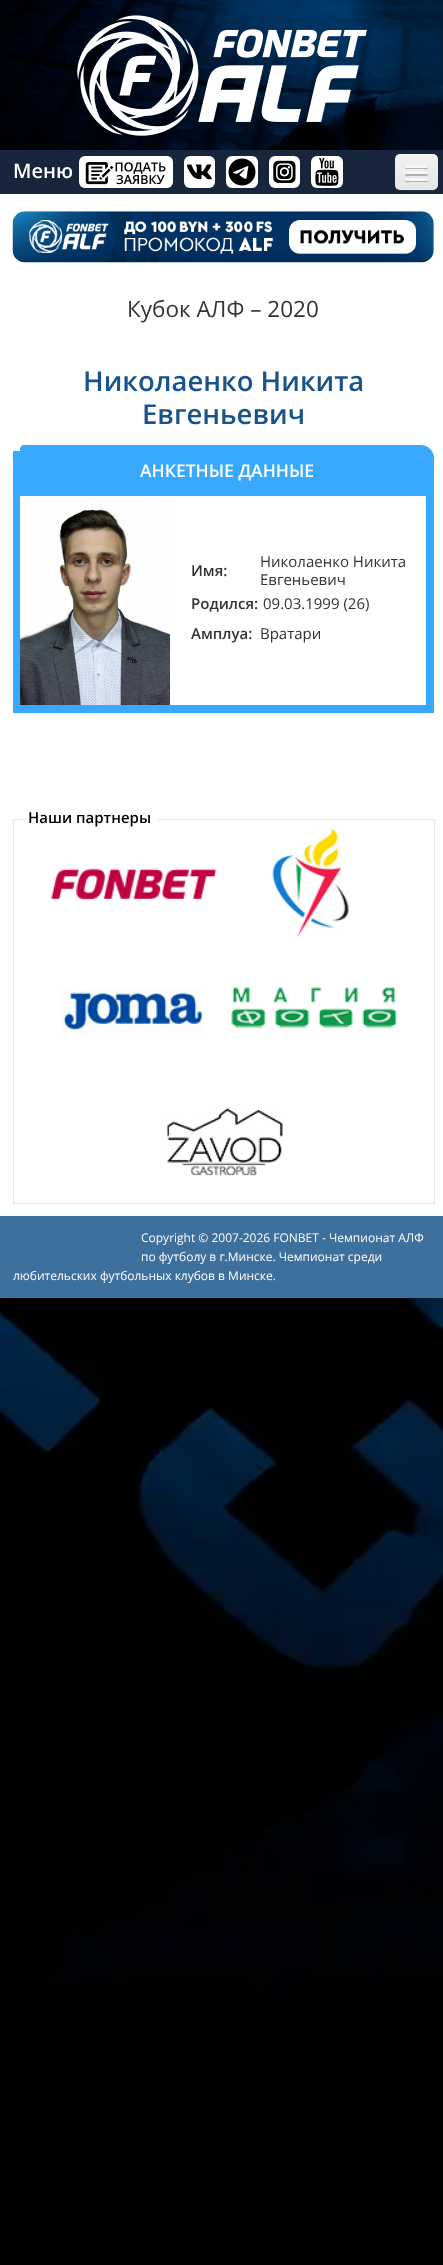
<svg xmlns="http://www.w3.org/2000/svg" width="443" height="2265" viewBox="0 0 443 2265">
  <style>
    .t1 { font: 600 20px Open Sans; fill: #fff; }
    .t2 { font: 22.5px Open Sans; fill: #333; }
    .t3 { font: 600 27.5px Open Sans; fill: #19538b; }
    .t4 { font: 600 17.5px Open Sans; fill: #fff; }
    .t5 { font: 600 15px Open Sans; fill: #333; }
    .t6 { font: 15px Open Sans; fill: #333; }
    .t7 { font: 600 15px Open Sans; fill: #000; }
    .t8 { font: 12px Open Sans; fill: #fff; }
  </style>
  <defs>
    <linearGradient id="g1" gradientUnits="userSpaceOnUse" x1="416" y1="154" x2="416" y2="190"><stop offset="0" stop-color="#f2f2f2"/><stop offset="1" stop-color="#e5e5e5"/></linearGradient>
  </defs>
  <rect width="100%" height="100%" fill="#fff"/>
  <image x="0" y="1298" width="443" height="967" href="images/1.png"/>
  <rect x="0" y="0" width="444" height="1298" fill="#00000080" filter="blur(6px)"/>
  <image x="0" y="0" width="443" height="150" href="images/2.png"/>
  <image x="77" y="15" width="290" height="121" href="images/3.png"/>
  <rect x="0" y="150" width="443" height="44" fill="#17263d"/>
  <text x="13" y="178" class="t1">Меню</text>
  <rect x="79" y="156" width="94" height="32" rx="6" fill="#fff"/>
  <image x="85" y="162" width="81" height="23" href="images/4.png"/>
  <rect x="184" y="156" width="31" height="32" rx="6" fill="#fff"/>
  <image x="187" y="164" width="25" height="16" href="images/5.png"/>
  <rect x="226" y="156" width="32" height="32" rx="6" fill="#fff"/>
  <image x="228" y="158" width="28" height="28" href="images/6.png"/>
  <rect x="269" y="156" width="31" height="32" rx="6" fill="#fff"/>
  <image x="273" y="160" width="23" height="23" href="images/7.png"/>
  <rect x="311" y="156" width="32" height="32" rx="6" fill="#fff"/>
  <image x="315" y="157" width="24" height="29" href="images/8.png"/>
  <path d="M395 185C395 192 400 191 406 191H416C439 191 438 195 438 173C438 170 439 161 437 158L438 172C438 190 440 190 422 190H411C407 190 395 192 395 185Z" fill="#28364c"/>
  <rect x="395" y="154" width="43" height="36" rx="5" fill="url(#g1)"/>
  <path d="M400 155H432C435 155 438 157 438 160C438 153 433 154 428 154H406C400 154 395 153 395 160C395 157 397 155 400 155Z" fill="#ffffff1a"/>
  <path d="M405 167C404 169.5 409 169 410 169H423C424 169 427.5 170 428 168C428 167.5 428 166.5 427.5 166.5C427.5 167 427 167.5 426 167.5H406C406 167.5 405.5 167 405 167Z" fill="#b2b2b2"/>
  <rect x="405" y="165" width="23" height="3" rx="1.5" fill="#f5f5f5"/>
  <path d="M405.5 173.5L405 175C405.5 177 409 176 410 176H413C415 176 426.5 176.5 427.5 175.5C428 175 428 174 427.5 173L426.5 173.5C424.5 174 406 174 405.5 173.5Z" fill="#b0b0b0"/>
  <rect x="405" y="171" width="23" height="3" rx="1.5" fill="#f5f5f5"/>
  <path d="M405.5 179.5L405 181C405.5 183 409 182 410 182H423C424.5 182 428 183 428 180.5L427.5 179.5L426.5 180C424.5 180.5 406 180.5 405.5 179.5Z" fill="#aeaeae"/>
  <rect x="405" y="178" width="23" height="3" rx="1.5" fill="#f5f5f5"/>
  <rect x="0" y="194" width="443" height="1022" fill="#fff"/>
  <image x="12" y="211" width="422" height="52" href="images/9.png"/>
  <text x="127" y="317" class="t2">Кубок АЛФ – 2020</text>
  <text x="83" y="391" class="t3">Николаенко Никита</text>
  <text x="142" y="424" class="t3">Евгеньевич</text>
  <rect x="13" y="451" width="7" height="262" fill="#38a9ff"/>
  <path d="M25 445H421C428 445 434 451 434 458V496H20V450C20 447 22 445 25 445Z" fill="#38a9ff"/>
  <path d="M25 445H28V496H20V450C20 447 22 445 25 445Z" fill="#38a9ff"/>
  <text x="140" y="477" class="t4">АНКЕТНЫЕ ДАННЫЕ</text>
  <rect x="20" y="705" width="150" height="8" fill="#38a9ff"/>
  <image x="20" y="496" width="150" height="209" href="images/10.png"/>
  <rect x="426" y="496" width="8" height="217" fill="#38a9ff"/>
  <rect x="170" y="705" width="264" height="8" fill="#38a9ff"/>
  <text x="191" y="576" class="t5">Имя:</text>
  <text x="260" y="567" class="t6">Николаенко Никита</text>
  <text x="260" y="585" class="t6">Евгеньевич</text>
  <text x="191" y="609" class="t5">Родился:</text>
  <text x="263" y="609" class="t6">09.03.1999 (26)</text>
  <text x="191" y="639" class="t5">Амплуа:</text>
  <text x="260" y="639" class="t6">Вратари</text>
  <rect x="13" y="819" width="422" height="1" fill="#e7e7e7"/>
  <rect x="434" y="819" width="1" height="385" fill="#e7e7e7"/>
  <rect x="13" y="1203" width="422" height="1" fill="#e7e7e7"/>
  <rect x="13" y="819" width="1" height="385" fill="#e7e7e7"/>
  <rect x="23" y="819" width="135" height="1" fill="#fff"/>
  <text x="28" y="823" class="t7">Наши партнеры</text>
  <image x="51" y="868" width="166" height="33" href="images/11.png"/>
  <image x="272" y="827" width="77" height="110" href="images/12.png"/>
  <image x="61" y="988" width="144" height="45" href="images/13.png"/>
  <image x="231" y="987" width="166" height="41" href="images/14.png"/>
  <image x="167" y="1108" width="116" height="68" href="images/15.png"/>
  <rect x="0" y="1216" width="443" height="82" fill="#3e709e"/>
  <text x="141" y="1242" class="t8">Copyright © 2007-2026 FONBET - Чемпионат АЛФ</text>
  <text x="141" y="1261" class="t8">по футболу в г.Минске. Чемпионат среди</text>
  <text x="13" y="1280" class="t8">любительских футбольных клубов в Минске.</text>
</svg>
